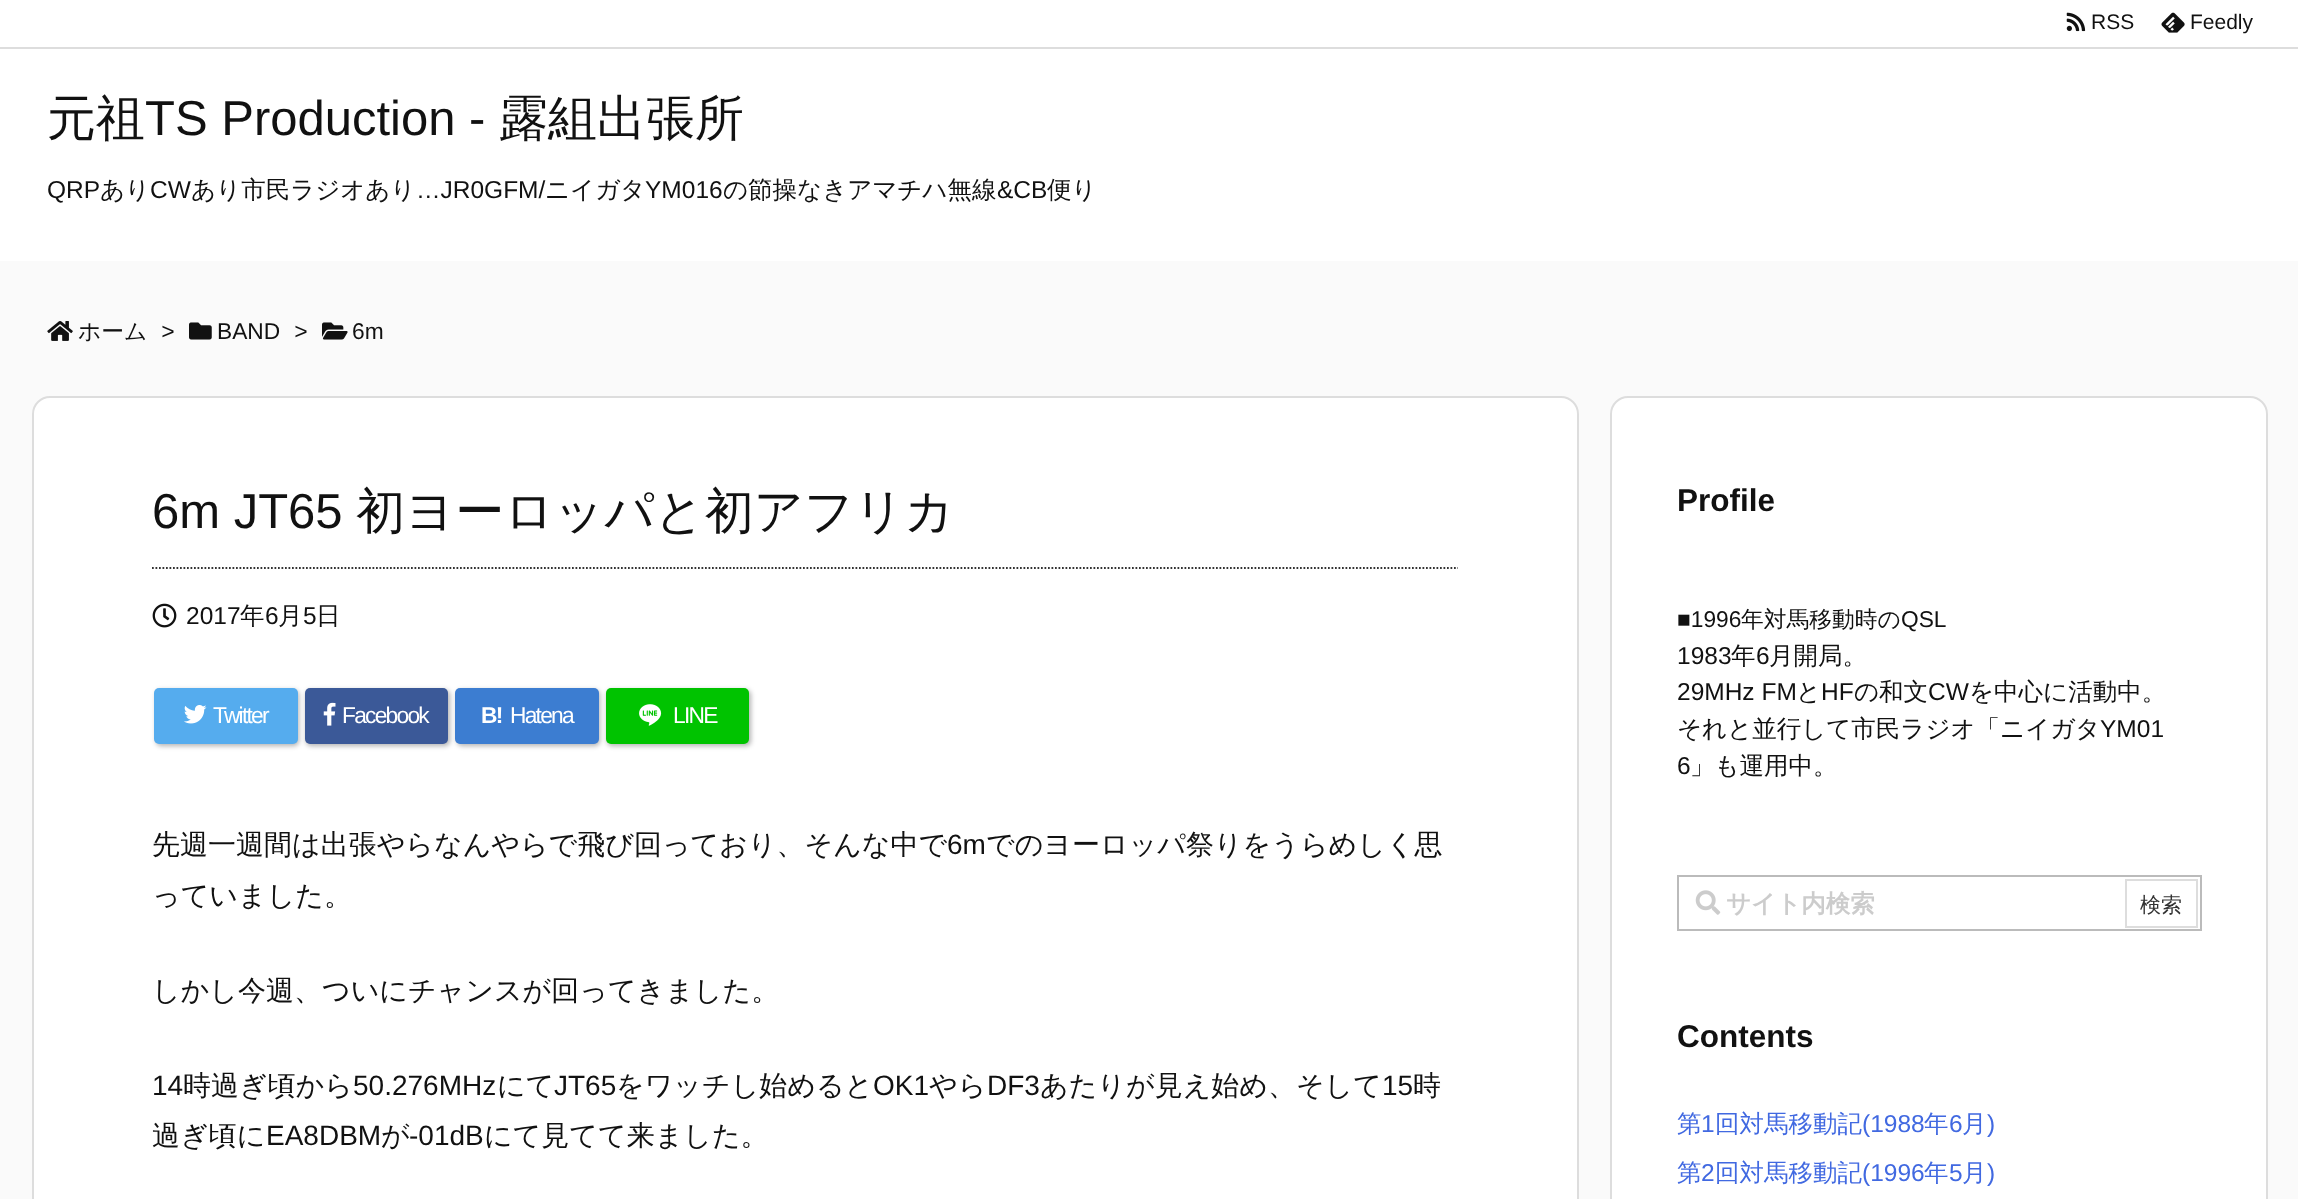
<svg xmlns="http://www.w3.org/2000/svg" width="2298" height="1199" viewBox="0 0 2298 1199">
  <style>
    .t1 { font: 21px Liberation Sans; fill: #111; }
    .t2 { font: 500 49px WenQuanYi Zen Hei; fill: #111; }
    .t3 { font: 49px Liberation Sans; fill: #111; }
    .t4 { font: 24.5px Liberation Sans; fill: #111; }
    .t5 { font: 500 24.5px WenQuanYi Zen Hei; fill: #111; }
    .t6 { font: 500 22.75px WenQuanYi Zen Hei; fill: #111; }
    .t7 { font: italic 22.75px Liberation Sans; fill: #111; }
    .t8 { font: 22.75px Liberation Sans; fill: #111; }
    .t9 { font: 22.75px Liberation Sans; letter-spacing: -1.75px; fill: #fff; }
    .t10 { font: bold 22.75px Liberation Sans; letter-spacing: -1.75px; fill: #fff; }
    .t11 { font: 500 28px WenQuanYi Zen Hei; fill: #111; }
    .t12 { font: 28px Liberation Sans; fill: #111; }
    .t13 { font: bold 31.5px Liberation Sans; fill: #111; }
    .t14 { font: bold 24.5px WenQuanYi Zen Hei; fill: #ccc; }
    .t15 { font: 500 21px WenQuanYi Zen Hei; fill: #333; }
    .t16 { font: 500 24.5px WenQuanYi Zen Hei; fill: #4169e1; }
    .t17 { font: 24.5px Liberation Sans; fill: #4169e1; }
  </style>
  <rect width="100%" height="100%" fill="#fafafa"/>
  <rect x="0" y="0" width="2298" height="261" fill="#fff"/>
  <rect x="0" y="47" width="2298" height="2" fill="#ddd"/>
  <image x="2066" y="12" width="20" height="20" href="images/1.png"/>
  <text x="2091" y="29" class="t1">RSS</text>
  <image x="2161" y="12" width="24" height="21" href="images/2.png"/>
  <text x="2190" y="29" class="t1">Feedly</text>
  <text x="47" y="135" class="t2">元祖</text>
  <text x="145" y="135" class="t3">TS Production -</text>
  <text x="499" y="135" class="t2">露組出張所</text>
  <text x="47" y="198" class="t4">QRP</text>
  <text x="100" y="198" class="t5">あり</text>
  <text x="150" y="198" class="t4">CW</text>
  <text x="191" y="198" class="t5">あり市民ラジオあり</text>
  <text x="416" y="198" class="t4">…JR0GFM/</text>
  <text x="545" y="198" class="t5">ニイガタ</text>
  <text x="645" y="198" class="t4">YM016</text>
  <text x="723" y="198" class="t5">の節操なきアマチハ無線</text>
  <text x="997" y="198" class="t4">&amp;CB</text>
  <text x="1047" y="198" class="t5">便り</text>
  <image x="47" y="321" width="26" height="20" href="images/3.png"/>
  <text x="78" y="339" class="t6">ホーム</text>
  <text x="161" y="339" class="t7">&gt;</text>
  <image x="189" y="322" width="23" height="18" href="images/4.png"/>
  <text x="217" y="339" class="t8">BAND</text>
  <text x="294" y="339" class="t7">&gt;</text>
  <image x="322" y="322" width="26" height="18" href="images/5.png"/>
  <text x="352" y="339" class="t8">6m</text>
  <rect x="33" y="397" width="1545" height="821" rx="17" fill="#fff" stroke="#ddd" stroke-width="2"/>
  <text x="152" y="528" class="t3">6m JT65</text>
  <text x="356" y="528" class="t2">初ヨーロッパと初アフリカ</text>
  <path d="M152 568H1458" fill="none" stroke="#333" stroke-width="1.8" stroke-dasharray="1.75 1.75"/>
  <image x="152" y="603" width="25" height="25" href="images/6.png"/>
  <text x="186" y="624" class="t4">2017</text>
  <text x="240" y="624" class="t5">年</text>
  <text x="265" y="624" class="t4">6</text>
  <text x="278" y="624" class="t5">月</text>
  <text x="303" y="624" class="t4">5</text>
  <text x="316" y="624" class="t5">日</text>
  <rect x="156" y="690" width="143" height="56" rx="5" fill="#0000004d" filter="blur(2.5px)"/>
  <rect x="154" y="688" width="144" height="56" rx="5" fill="#55acee"/>
  <image x="184" y="705" width="23" height="19" href="images/7.png"/>
  <text x="213" y="723" class="t9">Twitter</text>
  <rect x="306" y="690" width="144" height="56" rx="5" fill="#0000004d" filter="blur(2.5px)"/>
  <rect x="305" y="688" width="143" height="56" rx="5" fill="#3b5998"/>
  <image x="323" y="702" width="13" height="24" href="images/8.png"/>
  <text x="342" y="723" class="t9">Facebook</text>
  <rect x="457" y="690" width="143" height="56" rx="5" fill="#0000004d" filter="blur(2.5px)"/>
  <rect x="455" y="688" width="144" height="56" rx="5" fill="#3c7dd1"/>
  <text x="481" y="723" class="t10">B!</text>
  <text x="510" y="723" class="t9">Hatena</text>
  <rect x="607" y="690" width="144" height="56" rx="5" fill="#0000004d" filter="blur(2.5px)"/>
  <rect x="606" y="688" width="143" height="56" rx="5" fill="#00c300"/>
  <image x="639" y="704" width="23" height="22" href="images/9.png"/>
  <text x="673" y="723" class="t9">LINE</text>
  <text x="152" y="854" class="t11">先週一週間は出張やらなんやらで飛び回っており、そんな中で</text>
  <text x="947" y="854" class="t12">6m</text>
  <text x="986" y="854" class="t11">でのヨーロッパ祭りをうらめしく思</text>
  <text x="152" y="905" class="t11">っていました。</text>
  <text x="152" y="1000" class="t11">しかし今週、ついにチャンスが回ってきました。</text>
  <text x="152" y="1095" class="t12">14</text>
  <text x="183" y="1095" class="t11">時過ぎ頃から</text>
  <text x="353" y="1095" class="t12">50.276MHz</text>
  <text x="497" y="1095" class="t11">にて</text>
  <text x="554" y="1095" class="t12">JT65</text>
  <text x="616" y="1095" class="t11">をワッチし始めると</text>
  <text x="873" y="1095" class="t12">OK1</text>
  <text x="929" y="1095" class="t11">やら</text>
  <text x="987" y="1095" class="t12">DF3</text>
  <text x="1040" y="1095" class="t11">あたりが見え始め、そして</text>
  <text x="1382" y="1095" class="t12">15</text>
  <text x="1413" y="1095" class="t11">時</text>
  <text x="152" y="1145" class="t11">過ぎ頃に</text>
  <text x="266" y="1145" class="t12">EA8DBM</text>
  <text x="381" y="1145" class="t11">が</text>
  <text x="409" y="1145" class="t12">-01dB</text>
  <text x="484" y="1145" class="t11">にて見てて来ました。</text>
  <rect x="1611" y="397" width="656" height="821" rx="17" fill="#fff" stroke="#ddd" stroke-width="2"/>
  <text x="1677" y="511" class="t13">Profile</text>
  <text x="1677" y="627" class="t8">■1996</text>
  <text x="1741" y="627" class="t6">年対馬移動時の</text>
  <text x="1901" y="627" class="t8">QSL</text>
  <text x="1677" y="664" class="t4">1983</text>
  <text x="1731" y="664" class="t5">年</text>
  <text x="1756" y="664" class="t4">6</text>
  <text x="1769" y="664" class="t5">月開局。</text>
  <text x="1677" y="700" class="t4">29MHz FM</text>
  <text x="1796" y="700" class="t5">と</text>
  <text x="1821" y="700" class="t4">HF</text>
  <text x="1854" y="700" class="t5">の和文</text>
  <text x="1928" y="700" class="t4">CW</text>
  <text x="1969" y="700" class="t5">を中心に活動中。</text>
  <text x="1677" y="737" class="t5">それと並行して市民ラジオ「ニイガタ</text>
  <text x="2100" y="737" class="t4">YM01</text>
  <text x="1677" y="774" class="t4">6</text>
  <text x="1690" y="774" class="t5">」も運用中。</text>
  <rect x="1678" y="876" width="523" height="54" fill="none" stroke="#bbb" stroke-width="2"/>
  <image x="1695" y="890" width="26" height="25" href="images/10.png"/>
  <text x="1726" y="912" class="t14">サイト内検索</text>
  <rect x="2126" y="880" width="71" height="47" fill="none" stroke="#ddd" stroke-width="2"/>
  <text x="2140" y="912" class="t15">検索</text>
  <text x="1677" y="1047" class="t13">Contents</text>
  <text x="1677" y="1132" class="t16">第</text>
  <text x="1701" y="1132" class="t17">1</text>
  <text x="1715" y="1132" class="t16">回対馬移動記</text>
  <text x="1862" y="1132" class="t17">(1988</text>
  <text x="1924" y="1132" class="t16">年</text>
  <text x="1949" y="1132" class="t17">6</text>
  <text x="1962" y="1132" class="t16">月</text>
  <text x="1987" y="1132" class="t17">)</text>
  <text x="1677" y="1181" class="t16">第</text>
  <text x="1701" y="1181" class="t17">2</text>
  <text x="1715" y="1181" class="t16">回対馬移動記</text>
  <text x="1862" y="1181" class="t17">(1996</text>
  <text x="1924" y="1181" class="t16">年</text>
  <text x="1949" y="1181" class="t17">5</text>
  <text x="1962" y="1181" class="t16">月</text>
  <text x="1987" y="1181" class="t17">)</text>
</svg>
